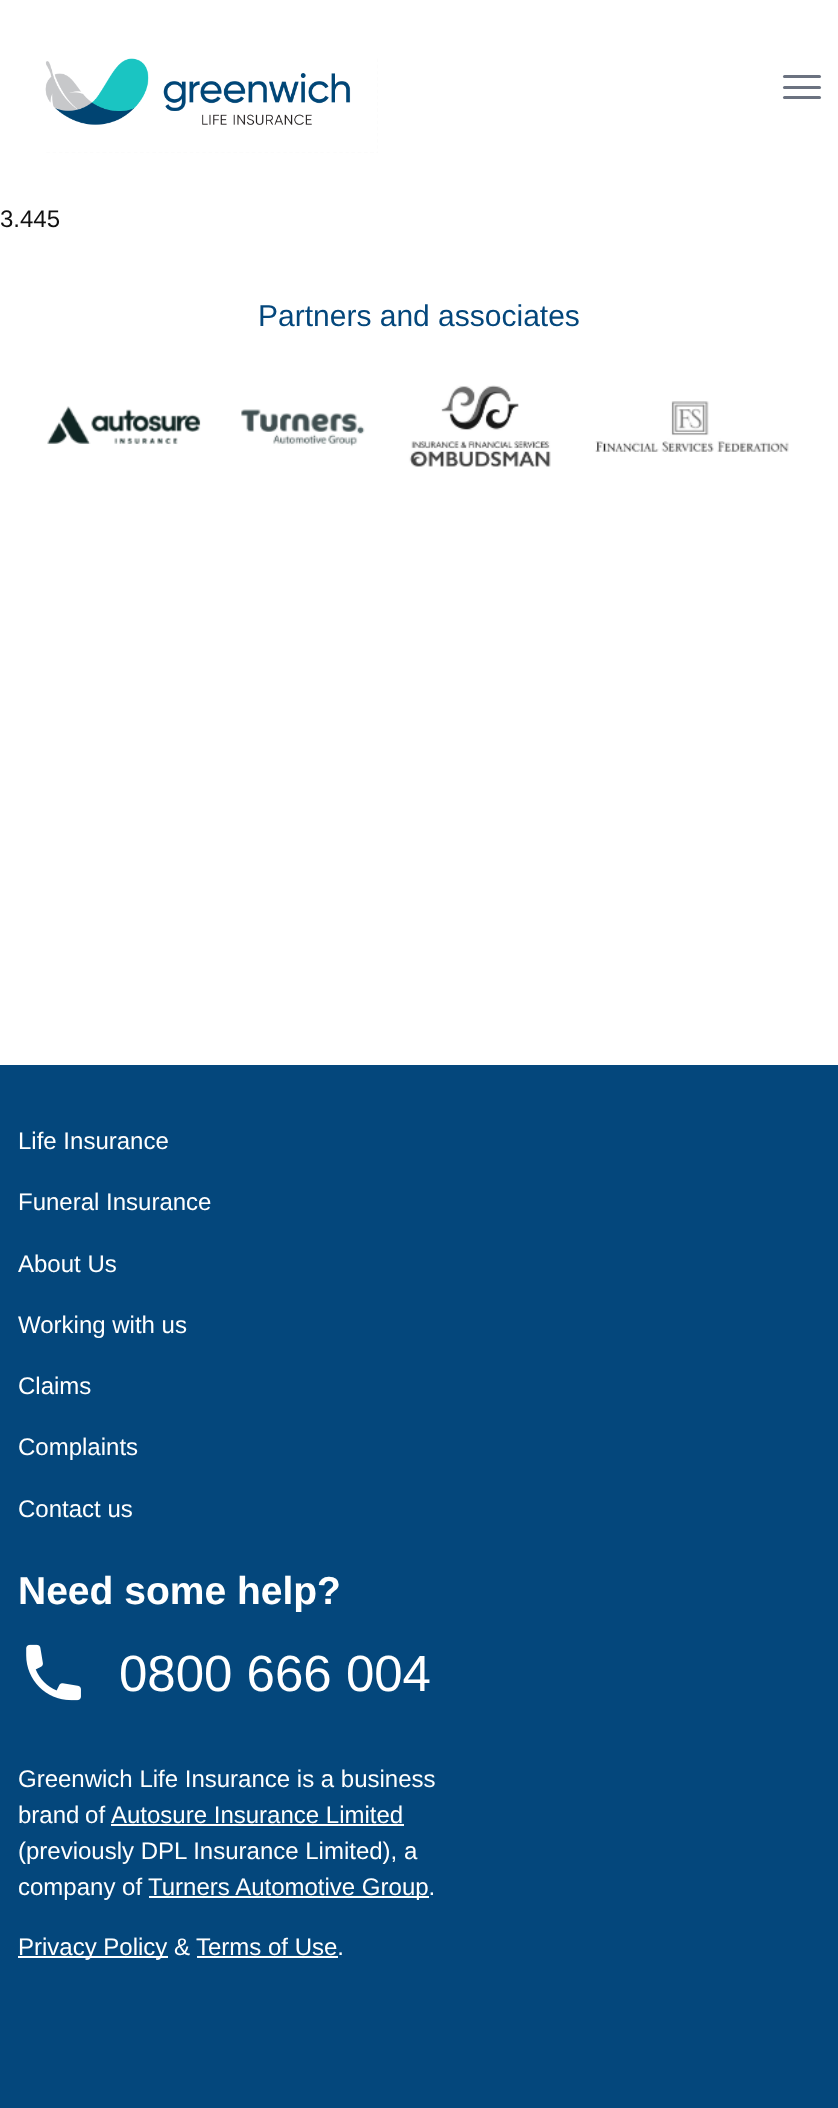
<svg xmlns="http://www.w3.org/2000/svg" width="838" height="2108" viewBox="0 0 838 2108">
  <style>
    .t1 { font: 24px Liberation Sans; fill: #111; }
    .t2 { font: 30px Liberation Sans; fill: #04477c; }
    .t3 { font: 24px Liberation Sans; fill: #fff; }
    .t4 { font: bold 39px Liberation Sans; fill: #fff; }
    .t5 { font: 51px Liberation Sans; fill: #fff; }
  </style>
  <rect width="100%" height="100%" fill="#fff"/>
  <image x="45" y="58" width="333" height="95" href="images/1.png"/>
  <rect x="783" y="75" width="38" height="3" rx="1.5" fill="#6b7280"/>
  <rect x="783" y="86" width="38" height="3" rx="1.5" fill="#6b7280"/>
  <rect x="783" y="96" width="38" height="3" rx="1.5" fill="#6b7280"/>
  <text x="0" y="227" class="t1">3.445</text>
  <text x="258" y="326" class="t2">Partners and associates</text>
  <image x="47" y="385" width="742" height="82" href="images/2.png"/>
  <rect x="0" y="1065" width="838" height="1043" fill="#04477c"/>
  <text x="18" y="1149" class="t3">Life Insurance</text>
  <text x="18" y="1210" class="t3">Funeral Insurance</text>
  <text x="18" y="1272" class="t3">About Us</text>
  <text x="18" y="1333" class="t3">Working with us</text>
  <text x="18" y="1394" class="t3">Claims</text>
  <text x="18" y="1455" class="t3">Complaints</text>
  <text x="18" y="1517" class="t3">Contact us</text>
  <text x="18" y="1604" class="t4">Need some help?</text>
  <image x="26" y="1644" width="55" height="57" href="images/3.png"/>
  <text x="119" y="1691" class="t5">0800 666 004</text>
  <text x="18" y="1787" class="t3">Greenwich Life Insurance is a business</text>
  <text x="18" y="1823" word-spacing="-1" class="t3">brand of</text>
  <text x="111" y="1823" class="t3">Autosure Insurance Limited</text>
  <rect x="111" y="1824" width="293" height="2" fill="#fff"/>
  <text x="18" y="1859" class="t3">(previously DPL Insurance Limited), a</text>
  <text x="18" y="1895" class="t3">company of</text>
  <rect x="149" y="1896" width="280" height="2" fill="#fff"/>
  <text x="148" y="1895" class="t3">Turners Automotive Group.</text>
  <rect x="18" y="1956" width="150" height="2" fill="#fff"/>
  <text x="18" y="1955" class="t3">Privacy Policy &amp;</text>
  <text x="196" y="1955" class="t3">Terms of Use.</text>
  <rect x="197" y="1956" width="141" height="2" fill="#fff"/>
</svg>
